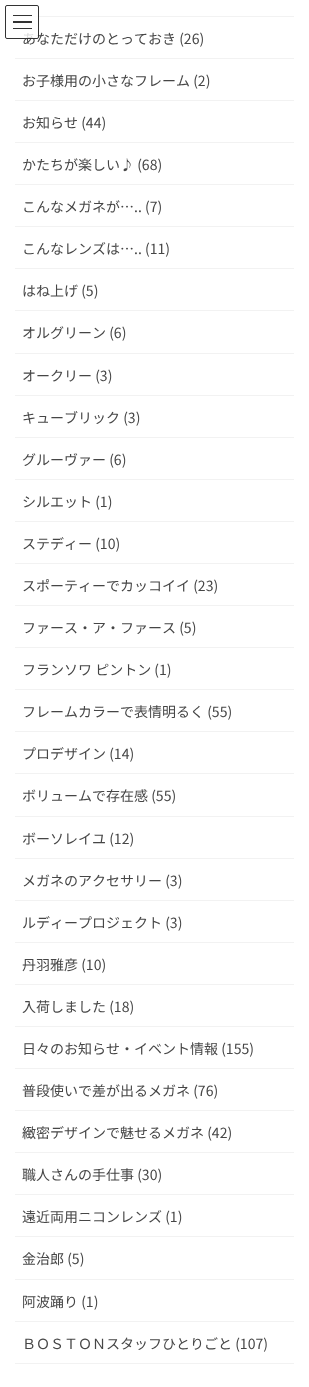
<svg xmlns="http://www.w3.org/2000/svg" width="309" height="1387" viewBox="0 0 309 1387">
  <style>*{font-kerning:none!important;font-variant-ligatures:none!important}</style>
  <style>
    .t1 { font: 14px Noto Sans JP; fill: #464646; }
  </style>
  <rect width="100%" height="100%" fill="#fff"/>
  <rect x="15" y="16" width="279" height="1" fill="#f2f2f2"/>
  <text x="22" y="44" class="t1">あなただけのとっておき (26)</text>
  <rect x="5" y="5" width="34" height="34" rx="2" fill="#ffffffcc"/>
  <rect x="13" y="15" width="19" height="1" fill="#333"/>
  <rect x="13" y="21" width="19" height="2" fill="#333"/>
  <rect x="13" y="28" width="19" height="1" fill="#333"/>
  <rect x="5.5" y="5.5" width="33" height="33" rx="1.5" fill="none" stroke="#333"/>
  <rect x="15" y="58" width="279" height="1" fill="#f2f2f2"/>
  <rect x="15" y="100" width="279" height="1" fill="#f2f2f2"/>
  <text x="22" y="86" class="t1">お子様用の小さなフレーム (2)</text>
  <rect x="15" y="142" width="279" height="1" fill="#f2f2f2"/>
  <text x="22" y="128" class="t1">お知らせ (44)</text>
  <rect x="15" y="184" width="279" height="1" fill="#f2f2f2"/>
  <text x="22" y="170" class="t1">かたちが楽しい♪ (68)</text>
  <rect x="15" y="226" width="279" height="1" fill="#f2f2f2"/>
  <text x="22" y="212" class="t1">こんなメガネが….. (7)</text>
  <rect x="15" y="268" width="279" height="1" fill="#f2f2f2"/>
  <text x="22" y="254" class="t1">こんなレンズは….. (11)</text>
  <rect x="15" y="310" width="279" height="1" fill="#f2f2f2"/>
  <text x="22" y="296" class="t1">はね上げ (5)</text>
  <rect x="15" y="353" width="279" height="1" fill="#f2f2f2"/>
  <text x="22" y="338" class="t1">オルグリーン (6)</text>
  <rect x="15" y="395" width="279" height="1" fill="#f2f2f2"/>
  <text x="22" y="381" class="t1">オークリー (3)</text>
  <rect x="15" y="437" width="279" height="1" fill="#f2f2f2"/>
  <text x="22" y="423" class="t1">キューブリック (3)</text>
  <rect x="15" y="479" width="279" height="1" fill="#f2f2f2"/>
  <text x="22" y="465" class="t1">グルーヴァー (6)</text>
  <rect x="15" y="521" width="279" height="1" fill="#f2f2f2"/>
  <text x="22" y="507" class="t1">シルエット (1)</text>
  <rect x="15" y="563" width="279" height="1" fill="#f2f2f2"/>
  <text x="22" y="549" class="t1">ステディー (10)</text>
  <rect x="15" y="605" width="279" height="1" fill="#f2f2f2"/>
  <text x="22" y="591" class="t1">スポーティーでカッコイイ (23)</text>
  <rect x="15" y="647" width="279" height="1" fill="#f2f2f2"/>
  <text x="22" y="633" class="t1">ファース・ア・ファース (5)</text>
  <rect x="15" y="689" width="279" height="1" fill="#f2f2f2"/>
  <text x="22" y="675" class="t1">フランソワ ピントン (1)</text>
  <rect x="15" y="731" width="279" height="1" fill="#f2f2f2"/>
  <text x="22" y="717" class="t1">フレームカラーで表情明るく (55)</text>
  <rect x="15" y="773" width="279" height="1" fill="#f2f2f2"/>
  <text x="22" y="759" class="t1">プロデザイン (14)</text>
  <rect x="15" y="816" width="279" height="1" fill="#f2f2f2"/>
  <text x="22" y="801" class="t1">ボリュームで存在感 (55)</text>
  <rect x="15" y="858" width="279" height="1" fill="#f2f2f2"/>
  <text x="22" y="844" class="t1">ボーソレイユ (12)</text>
  <rect x="15" y="900" width="279" height="1" fill="#f2f2f2"/>
  <text x="22" y="886" class="t1">メガネのアクセサリー (3)</text>
  <rect x="15" y="942" width="279" height="1" fill="#f2f2f2"/>
  <text x="22" y="928" class="t1">ルディープロジェクト (3)</text>
  <rect x="15" y="984" width="279" height="1" fill="#f2f2f2"/>
  <text x="22" y="970" class="t1">丹羽雅彦 (10)</text>
  <rect x="15" y="1026" width="279" height="1" fill="#f2f2f2"/>
  <text x="22" y="1012" class="t1">入荷しました (18)</text>
  <rect x="15" y="1068" width="279" height="1" fill="#f2f2f2"/>
  <text x="22" y="1054" class="t1">日々のお知らせ・イベント情報 (155)</text>
  <rect x="15" y="1110" width="279" height="1" fill="#f2f2f2"/>
  <text x="22" y="1096" class="t1">普段使いで差が出るメガネ (76)</text>
  <rect x="15" y="1152" width="279" height="1" fill="#f2f2f2"/>
  <text x="22" y="1138" class="t1">緻密デザインで魅せるメガネ (42)</text>
  <rect x="15" y="1194" width="279" height="1" fill="#f2f2f2"/>
  <text x="22" y="1180" class="t1">職人さんの手仕事 (30)</text>
  <rect x="15" y="1236" width="279" height="1" fill="#f2f2f2"/>
  <text x="22" y="1222" class="t1">遠近両用ニコンレンズ (1)</text>
  <rect x="15" y="1279" width="279" height="1" fill="#f2f2f2"/>
  <text x="22" y="1264" class="t1">金治郎 (5)</text>
  <rect x="15" y="1321" width="279" height="1" fill="#f2f2f2"/>
  <text x="22" y="1307" class="t1">阿波踊り (1)</text>
  <rect x="15" y="1363" width="279" height="1" fill="#f2f2f2"/>
  <text x="22" y="1349" class="t1">ＢＯＳＴＯＮスタッフひとりごと (107)</text>
</svg>
